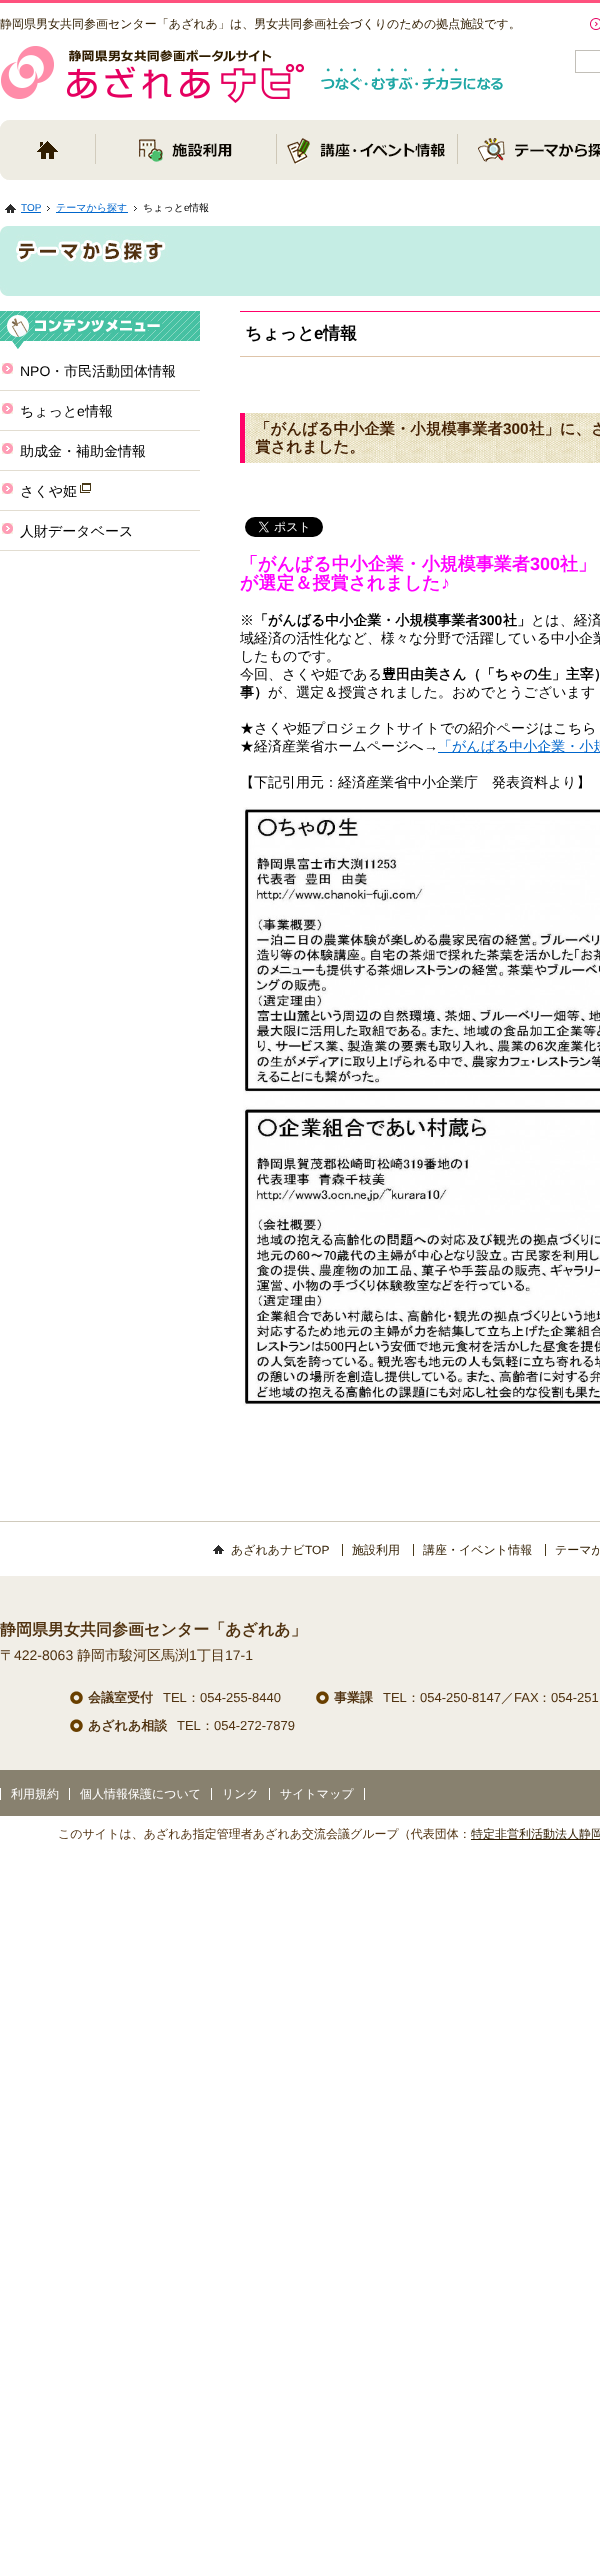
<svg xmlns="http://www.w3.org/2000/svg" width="600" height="2554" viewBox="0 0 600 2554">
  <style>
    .t1 { font: 500 12px WenQuanYi Zen Hei; fill: #301d00; }
    .t2 { font: 10px Liberation Sans; fill: #06c; }
    .t3 { font: 500 10px WenQuanYi Zen Hei; fill: #06c; }
    .t4 { font: 500 10px WenQuanYi Zen Hei; fill: #000; }
    .t5 { font: 10px Liberation Sans; fill: #000; }
    .t6 { font: 14px Liberation Sans; fill: #000; }
    .t7 { font: 500 14px WenQuanYi Zen Hei; fill: #000; }
    .t8 { font: bold 17px WenQuanYi Zen Hei; fill: #000; }
    .t9 { font: bold 17px Liberation Sans; fill: #000; }
    .t10 { font: bold 15.4px WenQuanYi Zen Hei; fill: #442103; }
    .t11 { font: bold 15.4px Liberation Sans; fill: #442103; }
    .t12 { font: bold 18px WenQuanYi Zen Hei; fill: #f0f; }
    .t13 { font: bold 18px Liberation Sans; fill: #f0f; }
    .t14 { font: bold 14px WenQuanYi Zen Hei; fill: #000; }
    .t15 { font: bold 14px Liberation Sans; fill: #000; }
    .t16 { font: 500 14px WenQuanYi Zen Hei; fill: #06c; }
    .t17 { font: 12px Liberation Sans; fill: #301d00; }
    .t18 { font: bold 16px WenQuanYi Zen Hei; fill: #503210; }
    .t19 { font: 500 14px WenQuanYi Zen Hei; fill: #503210; }
    .t20 { font: 14px Liberation Sans; fill: #503210; }
    .t21 { font: bold 13px WenQuanYi Zen Hei; fill: #503210; }
    .t22 { font: 13px Liberation Sans; fill: #503210; }
    .t23 { font: 500 13px WenQuanYi Zen Hei; fill: #503210; }
    .t24 { font: 500 12px WenQuanYi Zen Hei; fill: #fff; }
    .t25 { font: 500 12px WenQuanYi Zen Hei; fill: #503210; }
  </style>
  <rect width="100%" height="100%" fill="#fff"/>
  <rect x="0" y="0" width="600" height="3" fill="#fe517e"/>
  <text x="0" y="28" class="t1">静岡県男女共同参画センター「あざれあ」は、男女共同参画社会づくりのための拠点施設です。</text>
  <image x="590" y="18" width="10" height="12" href="images/1.png"/>
  <image x="1" y="46" width="303" height="57" href="images/2.png"/>
  <rect x="575.5" y="50.5" width="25" height="22" fill="none" stroke="#c2bfb8"/>
  <image x="321" y="68" width="182" height="23" href="images/3.png"/>
  <image x="0" y="120" width="600" height="60" href="images/4.png"/>
  <image x="0" y="120" width="8" height="60" href="images/5.png"/>
  <image x="5" y="204" width="11" height="9" href="images/6.png"/>
  <text x="21" y="211" class="t2">TOP</text>
  <rect x="21" y="212" width="20" height="1" fill="#06c"/>
  <image x="47" y="206" width="3" height="5" href="images/7.png"/>
  <rect x="56" y="212" width="72" height="1" fill="#06c"/>
  <text x="56" y="211" class="t3">テーマから探す</text>
  <image x="134" y="206" width="3" height="5" href="images/7.png"/>
  <text x="143" y="211" class="t4">ちょっと</text>
  <text x="184" y="211" class="t5">e</text>
  <text x="189" y="211" class="t4">情報</text>
  <image x="0" y="226" width="600" height="70" href="images/8.png"/>
  <image x="0" y="311" width="200" height="38" href="images/9.png"/>
  <rect x="0" y="390" width="200" height="1" fill="#e2ddd1"/>
  <image x="2" y="363" width="11" height="11" href="images/10.png"/>
  <text x="20" y="376" class="t6">NPO</text>
  <text x="50" y="376" class="t7">・市民活動団体情報</text>
  <rect x="0" y="430" width="200" height="1" fill="#e2ddd1"/>
  <image x="2" y="403" width="11" height="11" href="images/10.png"/>
  <text x="20" y="416" class="t7">ちょっと</text>
  <text x="77" y="416" class="t6">e</text>
  <text x="85" y="416" class="t7">情報</text>
  <rect x="0" y="470" width="200" height="1" fill="#e2ddd1"/>
  <image x="2" y="443" width="11" height="11" href="images/10.png"/>
  <text x="20" y="456" class="t7">助成金・補助金情報</text>
  <rect x="0" y="510" width="200" height="1" fill="#e2ddd1"/>
  <image x="2" y="483" width="11" height="11" href="images/10.png"/>
  <text x="20" y="496" class="t7">さくや姫</text>
  <image x="80" y="483" width="11" height="10" href="images/11.png"/>
  <rect x="0" y="550" width="200" height="1" fill="#e2ddd1"/>
  <image x="2" y="523" width="11" height="11" href="images/10.png"/>
  <text x="20" y="536" class="t7">人財データベース</text>
  <rect x="240" y="311" width="360" height="1" fill="#ff0068"/>
  <rect x="240" y="356" width="360" height="1" fill="#dec4a9"/>
  <text x="245" y="339" class="t8">ちょっと</text>
  <text x="314" y="339" class="t9">e</text>
  <text x="323" y="339" class="t8">情報</text>
  <image x="245" y="413" width="355" height="50" href="images/12.png"/>
  <rect x="240" y="413" width="5" height="50" fill="#ff0068"/>
  <text x="255" y="434" class="t10">「がんばる中小企業・小規模事業者</text>
  <text x="503" y="434" class="t11">300</text>
  <text x="529" y="434" class="t10">社」に、さ</text>
  <text x="255" y="452" class="t10">賞されました。</text>
  <image x="245" y="517" width="78" height="20" href="images/13.png"/>
  <text x="240" y="570" class="t12">「がんばる中小企業・小規模事業者</text>
  <text x="530" y="570" class="t13">300</text>
  <text x="560" y="570" class="t12">社」</text>
  <text x="240" y="589" class="t12">が選定＆授賞されました</text>
  <text x="441" y="589" class="t13">♪</text>
  <text x="240" y="625" class="t7">※</text>
  <text x="254" y="625" class="t14">「がんばる中小企業・小規模事業者</text>
  <text x="479" y="625" class="t15">300</text>
  <text x="503" y="625" class="t14">社」</text>
  <text x="531" y="625" class="t7">とは、経済</text>
  <text x="240" y="643" class="t7">域経済の活性化など、様々な分野で活躍している中小企業</text>
  <text x="240" y="661" class="t7">したものです。</text>
  <text x="240" y="679" class="t7">今回、さくや姫である</text>
  <text x="382" y="679" class="t14">豊田由美さん（「ちゃの生」主宰）</text>
  <text x="240" y="697" class="t14">事）</text>
  <text x="268" y="697" class="t7">が、選定＆授賞されました。おめでとうございます</text>
  <text x="240" y="733" class="t7">★さくや姫プロジェクトサイトでの紹介ページはこちら</text>
  <text x="240" y="751" class="t7">★経済産業省ホームページへ</text>
  <text x="424" y="751" class="t6">→</text>
  <rect x="438" y="752" width="162" height="1" fill="#06c"/>
  <text x="438" y="751" class="t16">「がんばる中小企業・小規</text>
  <text x="240" y="787" class="t7">【下記引用元：経済産業省中小企業庁　発表資料より】</text>
  <image x="243" y="807" width="357" height="599" href="images/14.png"/>
  <rect x="0" y="1521" width="600" height="1" fill="#d0cabc"/>
  <image x="213" y="1545" width="11" height="9" href="images/6.png"/>
  <text x="231" y="1554" class="t1">あざれあナビ</text>
  <text x="305" y="1554" class="t17">TOP</text>
  <image x="342" y="1544" width="1" height="12" href="images/15.png"/>
  <text x="352" y="1554" class="t1">施設利用</text>
  <image x="413" y="1544" width="1" height="12" href="images/15.png"/>
  <text x="423" y="1554" class="t1">講座・イベント情報</text>
  <image x="545" y="1544" width="1" height="12" href="images/15.png"/>
  <text x="555" y="1554" class="t1">テーマか</text>
  <image x="0" y="1576" width="600" height="240" href="images/16.png"/>
  <text x="0" y="1635" class="t18">静岡県男女共同参画センター「あざれあ」</text>
  <text x="0" y="1660" class="t19">〒</text>
  <text x="14" y="1660" class="t20">422-8063</text>
  <text x="77" y="1660" class="t19">静岡市駿河区馬渕</text>
  <text x="189" y="1660" class="t20">1</text>
  <text x="197" y="1660" class="t19">丁目</text>
  <text x="225" y="1660" class="t20">17-1</text>
  <image x="70" y="1691" width="13" height="13" href="images/17.png"/>
  <text x="88" y="1702" class="t21">会議室受付</text>
  <text x="163" y="1702" class="t22">TEL</text>
  <text x="187" y="1702" class="t23">：</text>
  <text x="200" y="1702" class="t22">054-255-8440</text>
  <image x="316" y="1691" width="13" height="13" href="images/17.png"/>
  <text x="334" y="1702" class="t21">事業課</text>
  <text x="383" y="1702" class="t22">TEL</text>
  <text x="407" y="1702" class="t23">：</text>
  <text x="420" y="1702" class="t22">054-250-8147</text>
  <text x="501" y="1702" class="t23">／</text>
  <text x="514" y="1702" class="t22">FAX</text>
  <text x="538" y="1702" class="t23">：</text>
  <text x="551" y="1702" class="t22">054-251</text>
  <image x="70" y="1719" width="13" height="13" href="images/17.png"/>
  <text x="88" y="1730" class="t21">あざれあ相談</text>
  <text x="177" y="1730" class="t22">TEL</text>
  <text x="201" y="1730" class="t23">：</text>
  <text x="214" y="1730" class="t22">054-272-7879</text>
  <rect x="0" y="1788" width="1" height="12" fill="#fff"/>
  <text x="11" y="1798" class="t24">利用規約</text>
  <rect x="69" y="1788" width="1" height="12" fill="#fff"/>
  <text x="80" y="1798" class="t24">個人情報保護について</text>
  <rect x="211" y="1788" width="1" height="12" fill="#fff"/>
  <text x="222" y="1798" class="t24">リンク</text>
  <rect x="364" y="1788" width="1" height="12" fill="#fff"/>
  <rect x="269" y="1788" width="1" height="12" fill="#fff"/>
  <text x="280" y="1798" class="t24">サイトマップ</text>
  <text x="58" y="1838" class="t25">このサイトは、あざれあ指定管理者あざれあ交流会議グループ（代表団体：</text>
  <rect x="471" y="1839" width="129" height="1" fill="#301d00"/>
  <text x="471" y="1838" class="t1">特定非営利活動法人静岡</text>
</svg>
